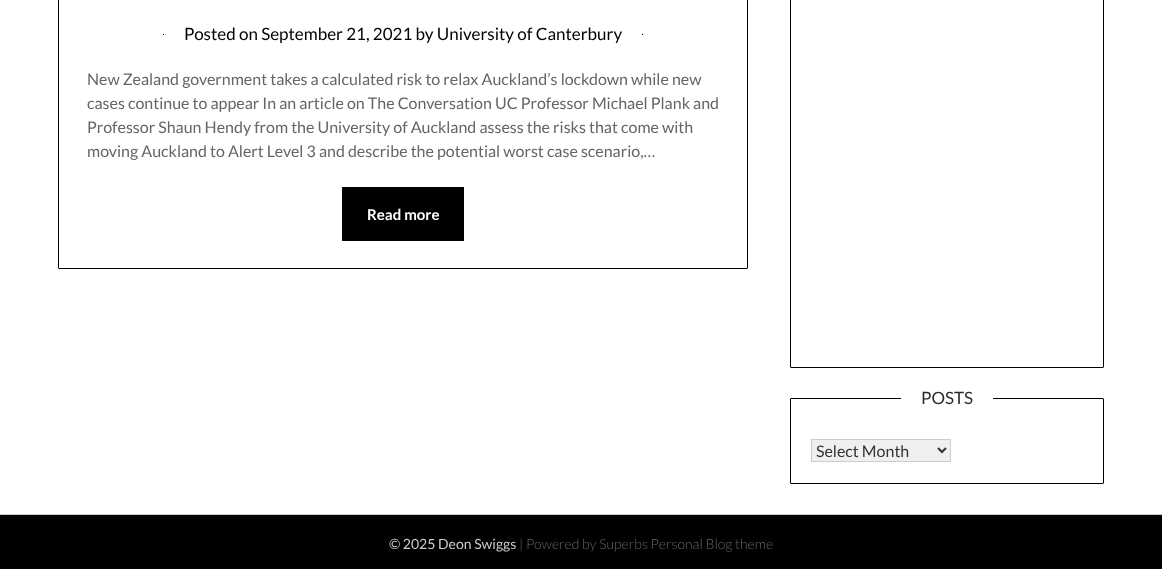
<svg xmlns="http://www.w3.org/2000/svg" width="1162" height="569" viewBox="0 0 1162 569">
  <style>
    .t1 { font: 17px Lato; fill: #000; }
    .t2 { font: 16px Lato; fill: #656565; }
    .t3 { font: bold 15px Lato; fill: #fff; }
    .t4 { font: 17px Lato; fill: #2b2b2b; }
    .t5 { font: 16px Lato; fill: #333; }
    .t6 { font: 14px Lato; fill: #ccc; }
    .t7 { font: 300 14px Lato; fill: #656565; }
  </style>
  <rect width="100%" height="100%" fill="#fff"/>
  <rect x="58.5" y="-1.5" width="689" height="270" rx="0.5" fill="none" stroke="#000"/>
  <rect x="163" y="34" width="480" height="1" fill="#000"/>
  <rect x="164" y="34" width="478" height="1" fill="#fff"/>
  <text x="184" y="40" class="t1">Posted on September 21, 2021 by University of Canterbury</text>
  <text x="87" y="85" class="t2">New Zealand government takes a calculated risk to relax Auckland’s lockdown while new</text>
  <text x="87" y="109" class="t2">cases continue to appear In an article on The Conversation UC Professor Michael Plank and</text>
  <text x="87" y="133" class="t2">Professor Shaun Hendy from the University of Auckland assess the risks that come with</text>
  <text x="87" y="157" class="t2">moving Auckland to Alert Level 3 and describe the potential worst case scenario,…</text>
  <rect x="342" y="187" width="122" height="54" fill="#000"/>
  <text x="367" y="220" class="t3">Read more</text>
  <rect x="790.5" y="-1.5" width="313" height="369" rx="0.5" fill="none" stroke="#000"/>
  <rect x="790.5" y="398.5" width="313" height="85" rx="0.5" fill="none" stroke="#000"/>
  <rect x="901" y="398" width="92" height="1" fill="#fff"/>
  <text x="921" y="404" class="t4">POSTS</text>
  <rect x="811.5" y="439.5" width="139" height="22" fill="#efefef" stroke="#ccc"/>
  <path d="M938 448L942 452L946 448" fill="none" stroke="#333" stroke-width="2"/>
  <text x="816" y="457" class="t5">Select Month</text>
  <rect x="0" y="515" width="1162" height="54" fill="#000"/>
  <rect x="0" y="514" width="1162" height="1" fill="#ccc"/>
  <text x="389" y="549" class="t6">© 2025 Deon Swiggs</text>
  <text x="519" y="549" class="t7">| Powered by Superbs Personal Blog theme</text>
</svg>
